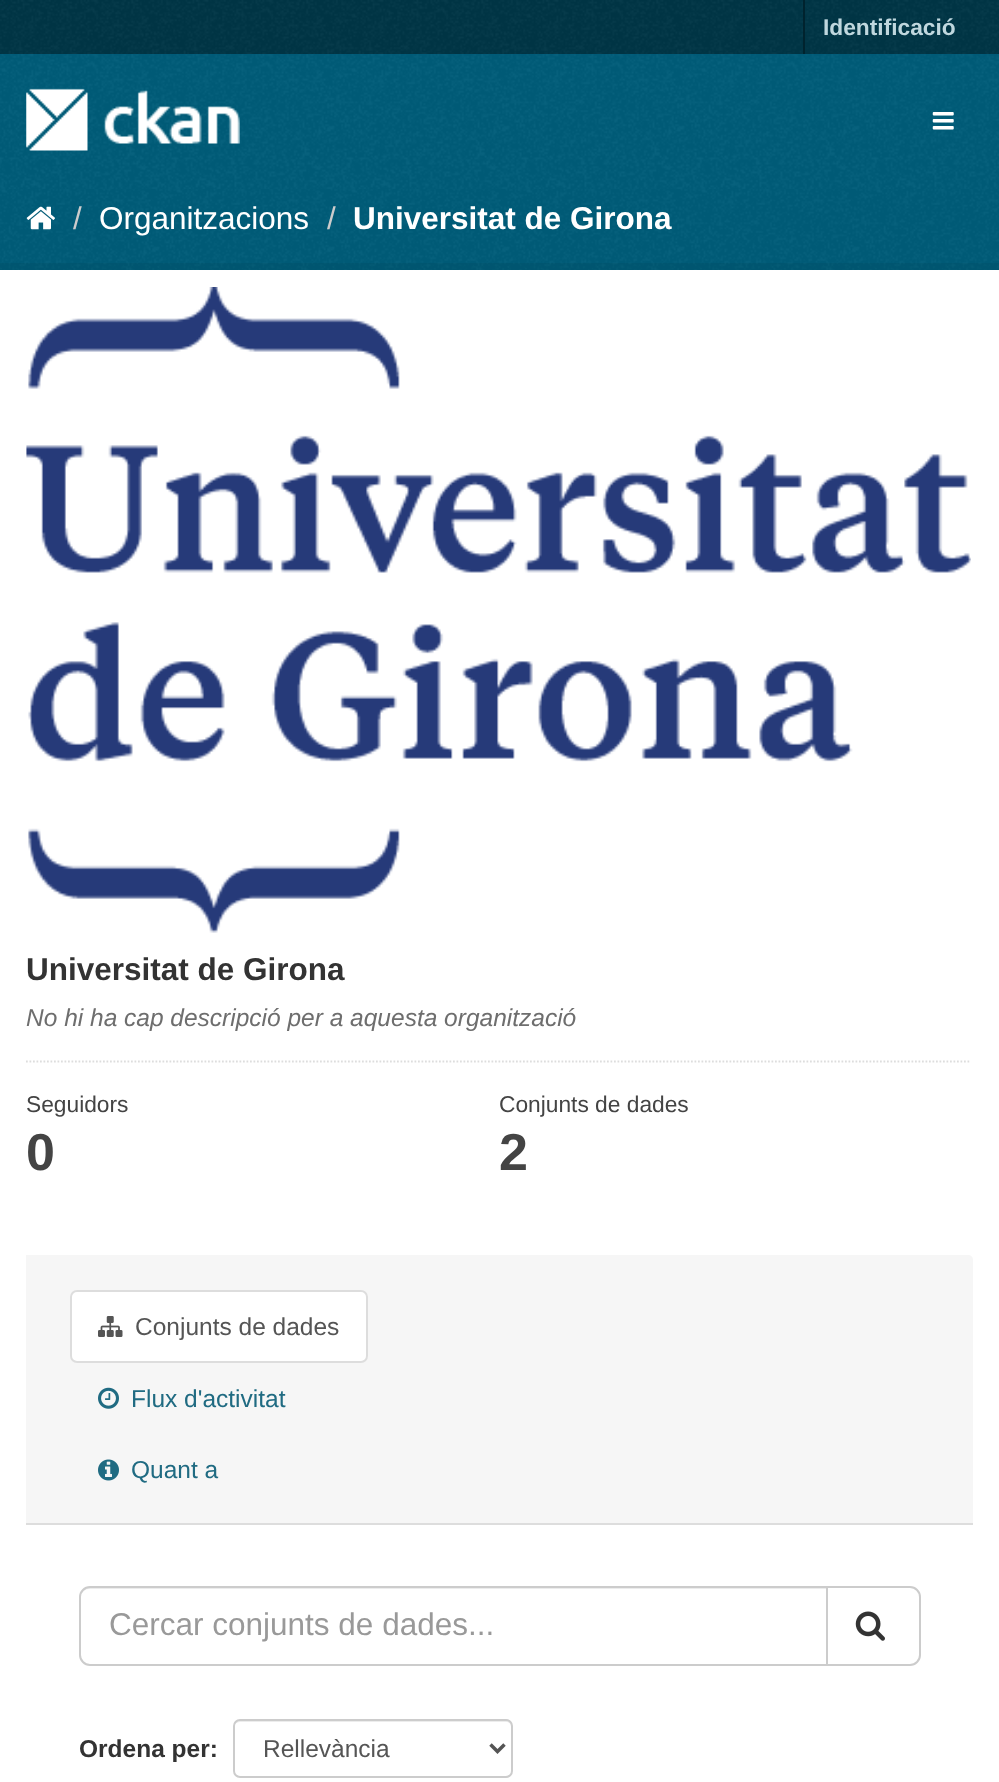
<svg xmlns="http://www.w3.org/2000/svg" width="999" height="1782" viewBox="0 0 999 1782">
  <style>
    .t1 { font: bold 22.75px Liberation Sans; fill: #bfd7de; }
    .t2 { font: 31.5px Liberation Sans; fill: #ccc; }
    .t3 { font: 31.5px Liberation Sans; fill: #fff; }
    .t4 { font: bold 31.5px Liberation Sans; fill: #fff; }
    .t5 { font: bold 31.5px Liberation Sans; fill: #333; }
    .t6 { font: italic 24.5px Liberation Sans; fill: #6e6e6e; }
    .t7 { font: 22.75px Liberation Sans; fill: #444; }
    .t8 { font: bold 52px Liberation Sans; fill: #444; }
    .t9 { font: 24.5px Liberation Sans; fill: #555; }
    .t10 { font: 24.5px Liberation Sans; fill: #206b82; }
    .t11 { font: 31.5px Liberation Sans; fill: #999; }
    .t12 { font: bold 24.5px Liberation Sans; fill: #333; }
  </style>
  <rect width="100%" height="100%" fill="#005d7a"/>
  <image x="0" y="189" width="999" height="81" href="images/1.png"/>
  <rect x="0" y="0" width="999" height="54" fill="#003647"/>
  <image x="0" y="0" width="999" height="54" href="images/2.png"/>
  <rect x="803" y="0" width="2" height="54" fill="#00232e"/>
  <text x="823" y="35" class="t1">Identificació</text>
  <image x="0" y="54" width="999" height="135" href="images/3.png"/>
  <image x="26" y="88" width="214" height="63" href="images/4.png"/>
  <image x="932" y="112" width="22" height="18" href="images/5.png"/>
  <image x="26" y="206" width="29" height="24" href="images/6.png"/>
  <text x="73" y="229" class="t2">/</text>
  <text x="99" y="229" class="t3">Organitzacions</text>
  <text x="327" y="229" class="t2">/</text>
  <text x="353" y="229" class="t4">Universitat de Girona</text>
  <rect x="-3.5" y="266.5" width="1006" height="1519" fill="none" stroke="#0000000d" stroke-width="7"/>
  <rect x="0" y="270" width="999" height="1512" fill="#fff"/>
  <image x="26" y="287" width="945" height="646" href="images/7.png"/>
  <text x="26" y="980" class="t5">Universitat de Girona</text>
  <text x="26" y="1026" class="t6">No hi ha cap descripció per a aquesta organització</text>
  <path d="M26 1061.5H971" fill="none" stroke="#ddd" stroke-width="1.8" stroke-dasharray="1.75 1.75"/>
  <text x="26" y="1112" class="t7">Seguidors</text>
  <text x="26" y="1170" class="t8">0</text>
  <text x="499" y="1112" class="t7">Conjunts de dades</text>
  <text x="499" y="1170" class="t8">2</text>
  <path d="M26 1255H968C971 1255 973 1257 973 1260V1524H26Z" fill="#f6f6f6"/>
  <rect x="26" y="1523" width="947" height="2" fill="#ddd"/>
  <rect x="71" y="1291" width="296" height="71" rx="6" fill="#fff" stroke="#ddd" stroke-width="2"/>
  <image x="98" y="1316" width="25" height="21" href="images/8.png"/>
  <text x="135" y="1335" class="t9">Conjunts de dades</text>
  <image x="98" y="1387" width="21" height="22" href="images/9.png"/>
  <text x="131" y="1407" class="t10">Flux d'activitat</text>
  <image x="98" y="1459" width="21" height="22" href="images/10.png"/>
  <text x="131" y="1478" class="t10">Quant a</text>
  <path d="M89 1589H826V1587H90C86 1587 83 1589 82 1593C83 1591 86 1589 89 1589Z" fill="#ececec"/>
  <path d="M90 1587H827V1665H90C84.5 1665 80 1660.5 80 1655V1597C80 1591.5 84.5 1587 90 1587Z" fill="none" stroke="#ccc" stroke-width="2"/>
  <text x="109" y="1635" class="t11">Cercar conjunts de dades...</text>
  <path d="M827 1587H910C915.5 1587 920 1591.5 920 1597V1655C920 1660.5 915.5 1665 910 1665H827Z" fill="#fff" stroke="#ccc" stroke-width="2"/>
  <image x="855" y="1611" width="30" height="30" href="images/11.png"/>
  <text x="79" y="1757" class="t12">Ordena per:</text>
  <path d="M240 1722H506C509 1722 511 1724 511 1727V1725C511 1722 509 1720 506 1720H240C238 1720 235 1722 235 1724C236 1723 238 1722 240 1722Z" fill="#ececec"/>
  <rect x="234" y="1720" width="278" height="57" rx="6" fill="none" stroke="#ccc" stroke-width="2"/>
  <path d="M490.5 1744.5L497.5 1751.5L504.5 1744.5" fill="none" stroke="#555" stroke-width="3.5"/>
  <text x="263" y="1757" class="t9">Rellevància</text>
</svg>
